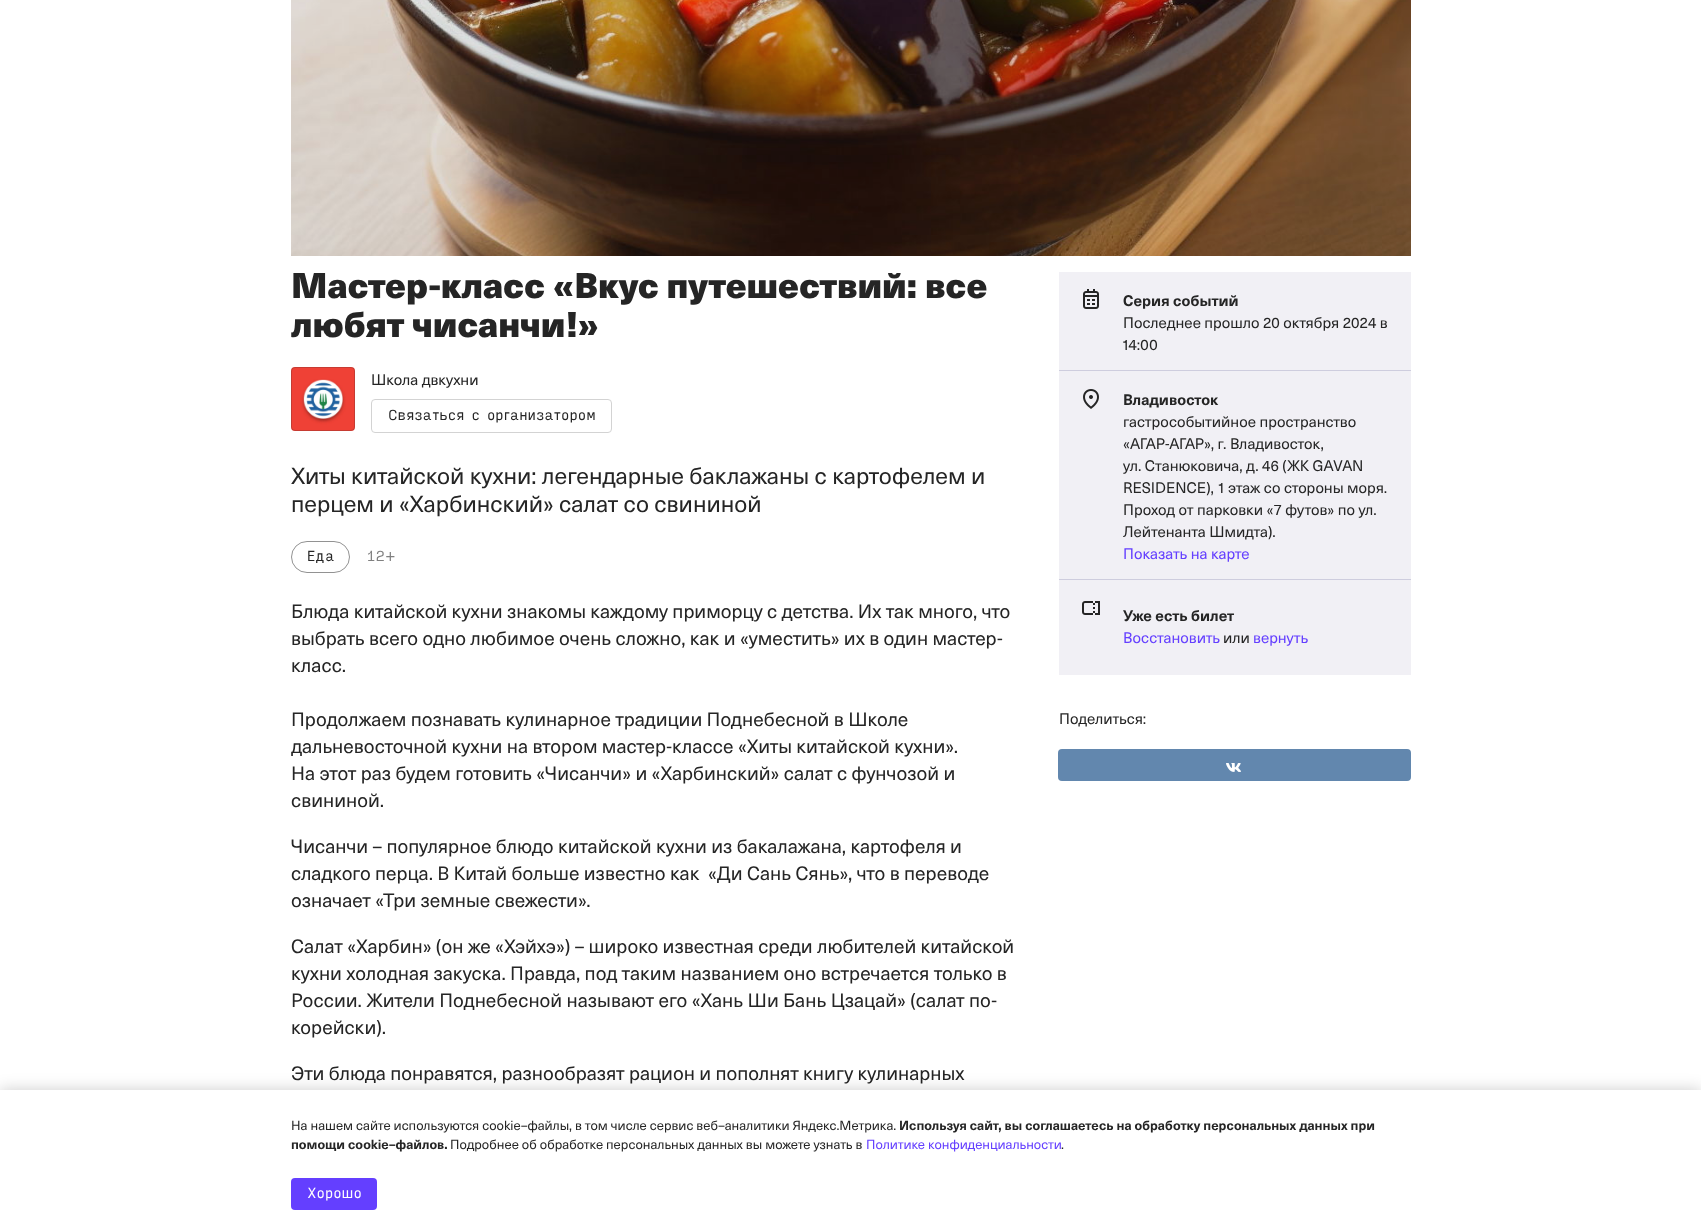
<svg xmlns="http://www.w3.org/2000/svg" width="1701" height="1226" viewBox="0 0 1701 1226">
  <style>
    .t1 { font: 900 35px 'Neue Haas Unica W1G'; fill: #252525; }
    .t2 { font: 15px 'Neue Haas Unica W1G'; fill: #252525; }
    .t3 { font: 14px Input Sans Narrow; fill: #252525; }
    .t4 { font: 23px 'Neue Haas Unica W1G'; fill: #252525; }
    .t5 { font: 14px Input Sans Narrow; fill: #808080; }
    .t6 { font: 19px 'Neue Haas Unica W1G'; fill: #252525; }
    .t7 { font: bold 15px 'Neue Haas Unica W1G'; fill: #252525; }
    .t8 { font: 15px 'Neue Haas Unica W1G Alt'; fill: #252525; }
    .t9 { font: 15px 'Neue Haas Unica W1G'; fill: #643fff; }
    .t10 { font: 13px 'Neue Haas Unica W1G'; fill: #252525; }
    .t11 { font: bold 13px 'Neue Haas Unica W1G'; fill: #252525; }
    .t12 { font: 13px 'Neue Haas Unica W1G'; fill: #643fff; }
    .t13 { font: 14px Input Sans Narrow; fill: #fff; }
  </style>
  <defs>
    <clipPath id="clip1"><rect x="291" y="578" width="736" height="581"/></clipPath>
  </defs>
  <rect width="100%" height="100%" fill="#fff"/>
  <image x="291" y="0" width="1120" height="256" href="images/1.png"/>
  <text x="291" y="298" class="t1">Мастер-класс «Вкус путешествий: все</text>
  <text x="291" y="337" class="t1">любят чисанчи!»</text>
  <image x="291" y="367" width="64" height="64" href="images/2.png"/>
  <rect x="291.5" y="367.5" width="63" height="63" rx="3.5" fill="none" stroke="#25252533"/>
  <text x="371" y="385" class="t2">Школа двкухни</text>
  <rect x="371.5" y="399.5" width="240" height="33" rx="3.5" fill="none" stroke="#d3d3d3"/>
  <text x="388" y="420" class="t3">Связаться с организатором</text>
  <text x="291" y="484" class="t4">Хиты китайской кухни: легендарные баклажаны с картофелем и</text>
  <text x="291" y="512" class="t4">перцем и «Харбинский» салат со свининой</text>
  <rect x="291.5" y="541.5" width="58" height="31" rx="15.5" fill="none" stroke="#929292"/>
  <text x="307" y="561" class="t3">Еда</text>
  <text x="366" y="561" class="t5">12+</text>
  <text x="291" y="618" class="t6">Блюда китайской кухни знакомы каждому приморцу с детства. Их так много, что</text>
  <text x="291" y="645" class="t6">выбрать всего одно любимое очень сложно, как и «уместить» их в один мастер-</text>
  <text x="291" y="672" class="t6">класс.</text>
  <text x="291" y="726" class="t6">Продолжаем познавать кулинарное традиции Поднебесной в Школе</text>
  <g clip-path="url(#clip1)">
    <text x="291" y="753" class="t6">дальневосточной кухни на втором мастер-классе «Хиты китайской кухни».</text>
  </g>
  <text x="291" y="780" class="t6">На этот раз будем готовить «Чисанчи» и «Харбинский» салат с фунчозой и</text>
  <text x="291" y="807" class="t6">свининой.</text>
  <text x="291" y="853" class="t6">Чисанчи – популярное блюдо китайской кухни из бакалажана, картофеля и</text>
  <text x="291" y="880" class="t6">сладкого перца. В Китай больше известно как</text>
  <text x="708" y="880" class="t6">«Ди Сань Сянь», что в переводе</text>
  <text x="291" y="907" class="t6">означает «Три земные свежести».</text>
  <text x="291" y="953" class="t6">Салат «Харбин» (он же «Хэйхэ») – широко известная среди любителей китайской</text>
  <text x="291" y="980" class="t6">кухни холодная закуска. Правда, под таким названием оно встречается только в</text>
  <text x="291" y="1007" class="t6">России. Жители Поднебесной называют его «Хань Ши Бань Цзацай» (cалат по-</text>
  <text x="291" y="1034" class="t6">корейски).</text>
  <text x="291" y="1080" class="t6">Эти блюда понравятся, разнообразят рацион и пополнят книгу кулинарных</text>
  <rect x="1059" y="272" width="352" height="98" fill="#f1f0f5"/>
  <image x="1083" y="289" width="16" height="20" href="images/3.png"/>
  <text x="1123" y="306" class="t7">Серия событий</text>
  <text x="1123" y="328" class="t2">Последнее прошло 20 октября 2024 в</text>
  <text x="1123" y="350" class="t8">14:00</text>
  <rect x="1059" y="371" width="352" height="208" fill="#f1f0f5"/>
  <rect x="1059" y="370" width="352" height="1" fill="#cecdde"/>
  <image x="1083" y="389" width="16" height="20" href="images/4.png"/>
  <text x="1123" y="405" class="t7">Владивосток</text>
  <text x="1123" y="427" class="t2">гастрособытийное пространство</text>
  <text x="1123" y="449" class="t2">«АГАР-АГАР», г. Владивосток,</text>
  <text x="1123" y="471" class="t2">ул. Станюковича, д. 46 (ЖК GAVAN</text>
  <text x="1123" y="493" class="t2">RESIDENCE), 1</text>
  <text x="1228" y="493" class="t2">этаж со стороны моря.</text>
  <text x="1123" y="515" class="t2">Проход от парковки «7 футов» по ул.</text>
  <text x="1123" y="537" class="t2">Лейтенанта Шмидта).</text>
  <text x="1123" y="559" class="t9">Показать на карте</text>
  <rect x="1059" y="580" width="352" height="95" fill="#f1f0f5"/>
  <rect x="1059" y="579" width="352" height="1" fill="#cecdde"/>
  <image x="1082" y="601" width="18" height="14" href="images/5.png"/>
  <text x="1123" y="621" class="t7">Уже есть билет</text>
  <text x="1123" y="643" class="t9">Восстановить</text>
  <text x="1223" y="643" class="t2">или</text>
  <text x="1253" y="643" class="t9">вернуть</text>
  <text x="1059" y="724" class="t2">Поделиться:</text>
  <rect x="1058" y="749" width="353" height="32" rx="4" fill="#6287ae"/>
  <image x="1226" y="763" width="15" height="9" href="images/6.png"/>
  <rect x="0" y="1090" width="1701" height="136" fill="#00000033" filter="blur(8px)"/>
  <rect x="0" y="1090" width="1701" height="136" fill="#fff"/>
  <text x="291" y="1130" class="t10">На нашем сайте используются cookie–файлы, в том числе сервис веб–аналитики Яндекс.Метрика.</text>
  <text x="899" y="1130" class="t11">Используя сайт, вы соглашаетесь на обработку персональных данных при</text>
  <text x="291" y="1149" class="t11">помощи cookie–файлов.</text>
  <text x="450" y="1149" class="t10">Подробнее об обработке персональных данных вы можете узнать в</text>
  <text x="866" y="1149" class="t12">Политике конфиденциальности</text>
  <text x="1061" y="1149" class="t10">.</text>
  <rect x="291" y="1178" width="86" height="32" rx="4" fill="#643fff"/>
  <text x="307" y="1198" class="t13">Хорошо</text>
</svg>
